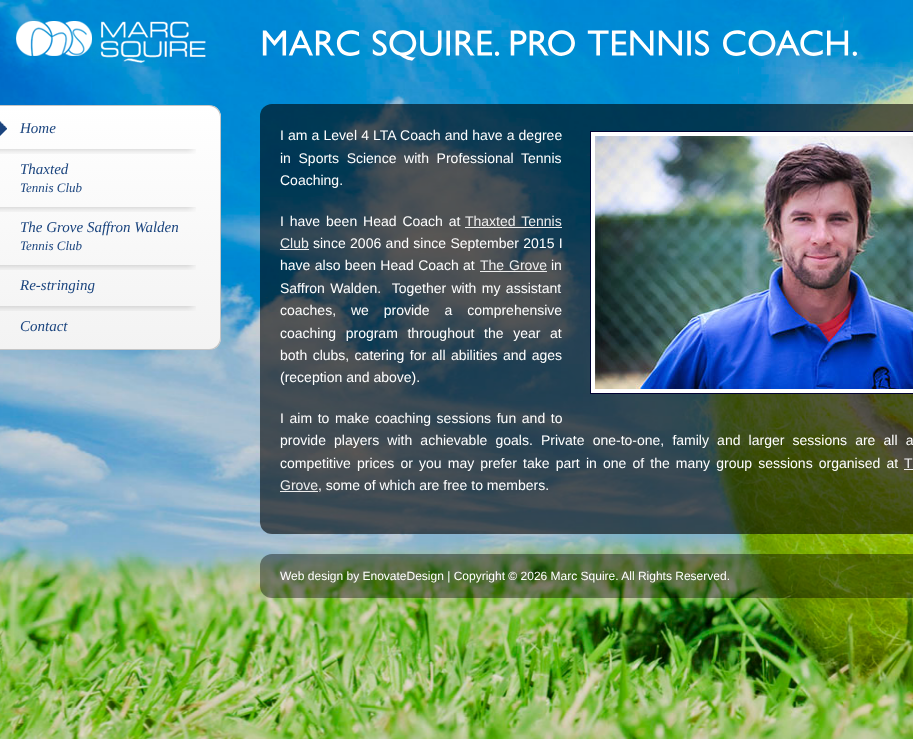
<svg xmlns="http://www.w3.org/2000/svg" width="913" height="739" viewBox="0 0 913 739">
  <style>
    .t1 { font: italic 15px Liberation Serif; fill: #1a447e; }
    .t2 { font: italic 13px Liberation Serif; fill: #1a447e; }
    .t3 { font: 14px Liberation Sans; fill: #fff; }
    .t4 { font: 14px Liberation Sans; fill: #eee; }
    .t5 { font: 12px Liberation Sans; fill: #fff; }
  </style>
  <defs>
    <clipPath id="clip1"><path d="M0 105H209C215.5 105 221 110.5 221 117V338C221 344.5 215.5 350 209 350H0Z"/></clipPath>
    <linearGradient id="g1" gradientUnits="userSpaceOnUse" x1="0" y1="106" x2="0" y2="349"><stop offset="0" stop-color="#fff"/><stop offset="1" stop-color="#f3f3f3"/></linearGradient>
  </defs>
  <rect width="100%" height="100%" fill="#fff"/>
  <image x="0" y="0" width="913" height="739" href="images/1.png"/>
  <image x="16" y="21" width="190" height="42" href="images/2.png"/>
  <image x="262" y="30" width="98" height="26" href="images/3.png"/>
  <image x="372" y="30" width="128" height="31" href="images/4.png"/>
  <image x="510" y="30" width="65" height="26" href="images/5.png"/>
  <image x="587" y="30" width="123" height="26" href="images/6.png"/>
  <image x="723" y="30" width="134" height="26" href="images/7.png"/>
  <g clip-path="url(#clip1)">
    <rect x="0" y="106" width="221" height="243" fill="url(#g1)"/>
  </g>
  <path d="M0 105H209C216 105 221 110 221 117V338C221 345 216 350 209 350H0ZM0 106H209C215 106 220 111 220 117V338C220 344 215 349 209 349H0Z" fill="#c5c5c5" fill-rule="evenodd"/>
  <image x="0" y="149" width="196" height="5" href="images/8.png"/>
  <image x="0" y="121" width="7" height="15" href="images/9.png"/>
  <text x="20" y="133" class="t1">Home</text>
  <image x="0" y="207" width="196" height="5" href="images/10.png"/>
  <text x="20" y="174" class="t1">Thaxted</text>
  <text x="20" y="192" class="t2">Tennis Club</text>
  <image x="0" y="265" width="196" height="5" href="images/11.png"/>
  <text x="20" y="232" class="t1">The Grove Saffron Walden</text>
  <text x="20" y="250" class="t2">Tennis Club</text>
  <image x="0" y="306" width="196" height="5" href="images/12.png"/>
  <text x="20" y="290" class="t1">Re-stringing</text>
  <text x="20" y="331" class="t1">Contact</text>
  <rect x="260" y="104" width="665" height="430" rx="12" fill="#00000099"/>
  <text x="280" y="140" word-spacing="0.25" class="t3">I am a Level 4 LTA Coach and have a degree</text>
  <text x="280" y="163" word-spacing="3.75" class="t3">in Sports Science with Professional Tennis</text>
  <text x="280" y="185" class="t3">Coaching.</text>
  <rect x="590.5" y="131.5" width="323" height="262" fill="#fff" stroke="#003"/>
  <image x="595" y="136" width="318" height="253" href="images/13.png"/>
  <text x="280" y="226" word-spacing="2" class="t3">I have been Head Coach at</text>
  <text x="465" y="226" word-spacing="2" class="t4">Thaxted Tennis</text>
  <rect x="465" y="227" width="97" height="1" fill="#eee"/>
  <text x="280" y="248" class="t4">Club</text>
  <rect x="280" y="249" width="29" height="1" fill="#eee"/>
  <text x="313" y="248" word-spacing="0.5" class="t3">since 2006 and since September 2015 I</text>
  <text x="280" y="270" word-spacing="0.5" class="t3">have also been Head Coach at</text>
  <text x="480" y="270" word-spacing="1" class="t4">The Grove</text>
  <rect x="480" y="271" width="67" height="1" fill="#eee"/>
  <text x="551" y="270" class="t3">in</text>
  <text x="280" y="293" word-spacing="1.5" class="t3" xml:space="preserve">Saffron Walden.  Together with my assistant</text>
  <text x="280" y="315" word-spacing="11" class="t3">coaches, we provide a comprehensive</text>
  <text x="280" y="338" word-spacing="5.75" class="t3">coaching program throughout the year at</text>
  <text x="280" y="360" word-spacing="1.5" class="t3">both clubs, catering for all abilities and ages</text>
  <text x="280" y="382" class="t3">(reception and above).</text>
  <text x="280" y="423" word-spacing="1.75" class="t3">I aim to make coaching sessions fun and to</text>
  <text x="280" y="445" word-spacing="4.25" class="t3">provide players with achievable goals. Private one-to-one, family and larger sessions are all a</text>
  <text x="280" y="468" word-spacing="2.25" class="t3">competitive prices or you may prefer take part in one of the many group sessions organised at</text>
  <text x="904" y="468" class="t4">T</text>
  <rect x="904" y="469" width="9" height="1" fill="#eee"/>
  <text x="280" y="490" class="t4">Grove</text>
  <rect x="280" y="491" width="38" height="1" fill="#eee"/>
  <text x="318" y="490" class="t3">, some of which are free to members.</text>
  <rect x="260" y="554" width="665" height="44" rx="12" fill="#00000066"/>
  <text x="280" y="580" class="t5">Web design by EnovateDesign | Copyright © 2026 Marc Squire. All Rights Reserved.</text>
</svg>
